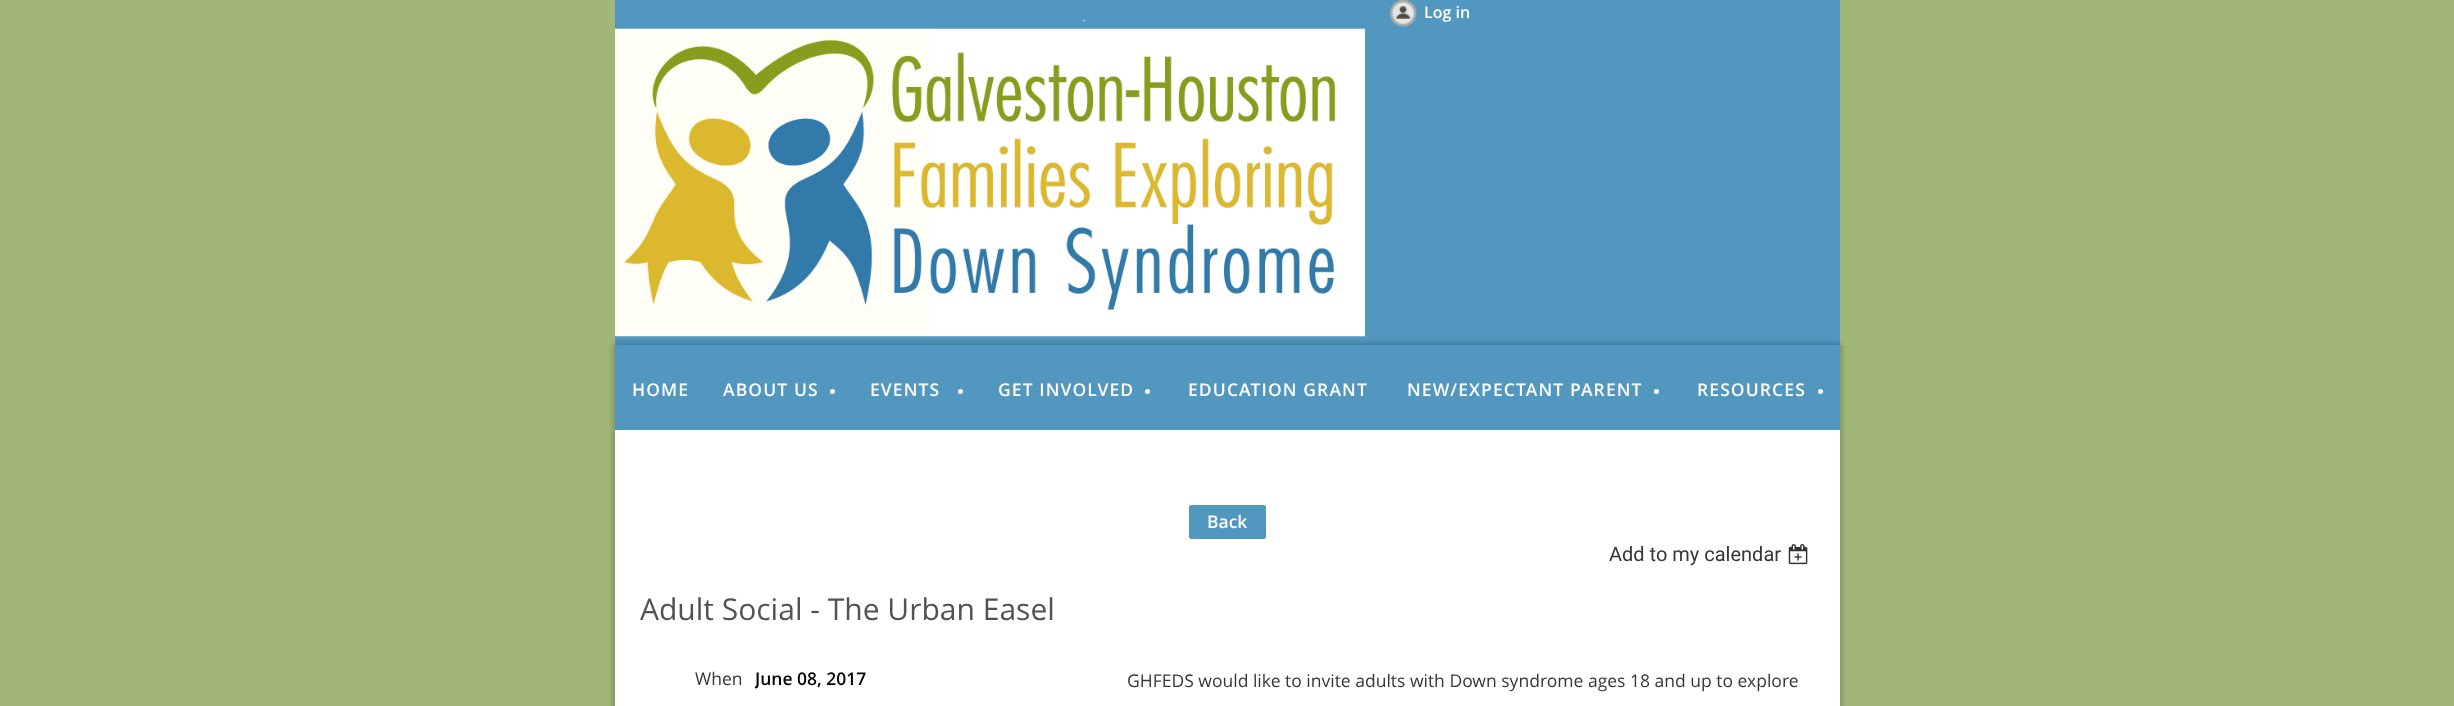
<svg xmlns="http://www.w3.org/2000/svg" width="2454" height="706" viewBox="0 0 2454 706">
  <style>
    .t1 { font: 600 16px Open Sans; fill: #fff; }
    .t2 { font: 600 17.5px Open Sans; letter-spacing: 1.1px; fill: #fff; }
    .t3 { font: 600 17.5px Open Sans; fill: #fff; }
    .t4 { font: 20px Roboto; fill: #373737; }
    .t5 { font: 30px Open Sans; fill: #525252; }
    .t6 { font: 17.5px Open Sans; fill: #373737; }
    .t7 { font: 600 17.5px Open Sans; fill: #000; }
  </style>
  <defs>
    <clipPath id="clip1"><rect x="755" y="666" width="318" height="24"/></clipPath>
  </defs>
  <rect width="100%" height="100%" fill="#a0b778"/>
  <rect x="615" y="0" width="1225" height="345" fill="#5297bf"/>
  <image x="1389" y="0" width="28" height="27" href="images/1.png"/>
  <text x="1424" y="18" class="t1">Log in</text>
  <image x="1083" y="20" width="2" height="2" href="images/2.png"/>
  <image x="615" y="28" width="750" height="309" href="images/3.png"/>
  <image x="611" y="340" width="1233" height="5" href="images/4.png"/>
  <image x="621" y="339" width="1213" height="6" href="images/5.png"/>
  <image x="609" y="345" width="1237" height="85" href="images/6.png"/>
  <rect x="615" y="345" width="1225" height="85" fill="#5297bf"/>
  <text x="632" y="396" class="t2">HOME</text>
  <text x="723" y="396" class="t2">ABOUT US</text>
  <circle cx="832.5" cy="391.5" r="2.5" fill="#fff"/>
  <text x="870" y="396" class="t2">EVENTS</text>
  <circle cx="960.5" cy="391.5" r="2.5" fill="#fff"/>
  <text x="998" y="396" class="t2">GET INVOLVED</text>
  <circle cx="1147.5" cy="391.5" r="2.5" fill="#fff"/>
  <text x="1188" y="396" class="t2">EDUCATION GRANT</text>
  <text x="1407" y="396" class="t2">NEW/EXPECTANT PARENT</text>
  <circle cx="1656.5" cy="391.5" r="2.5" fill="#fff"/>
  <text x="1697" y="396" class="t2">RESOURCES</text>
  <circle cx="1820.5" cy="391.5" r="2.5" fill="#fff"/>
  <image x="609" y="430" width="1237" height="276" href="images/7.png"/>
  <rect x="615" y="430" width="1225" height="276" fill="#fff"/>
  <rect x="1189" y="505" width="77" height="34" rx="2.5" fill="#5297bf"/>
  <text x="1207" y="528" class="t3">Back</text>
  <text x="1609" y="561" class="t4">Add to my calendar</text>
  <image x="1788" y="544" width="20" height="21" href="images/8.png"/>
  <text x="640" y="620" class="t5">Adult Social - The Urban Easel</text>
  <text x="695" y="685" class="t6">When</text>
  <g clip-path="url(#clip1)">
    <text x="755" y="685" class="t7">June 08, 2017</text>
  </g>
  <text x="1127" y="687" class="t6">GHFEDS would like to invite adults with Down syndrome ages 18 and up to explore</text>
</svg>
